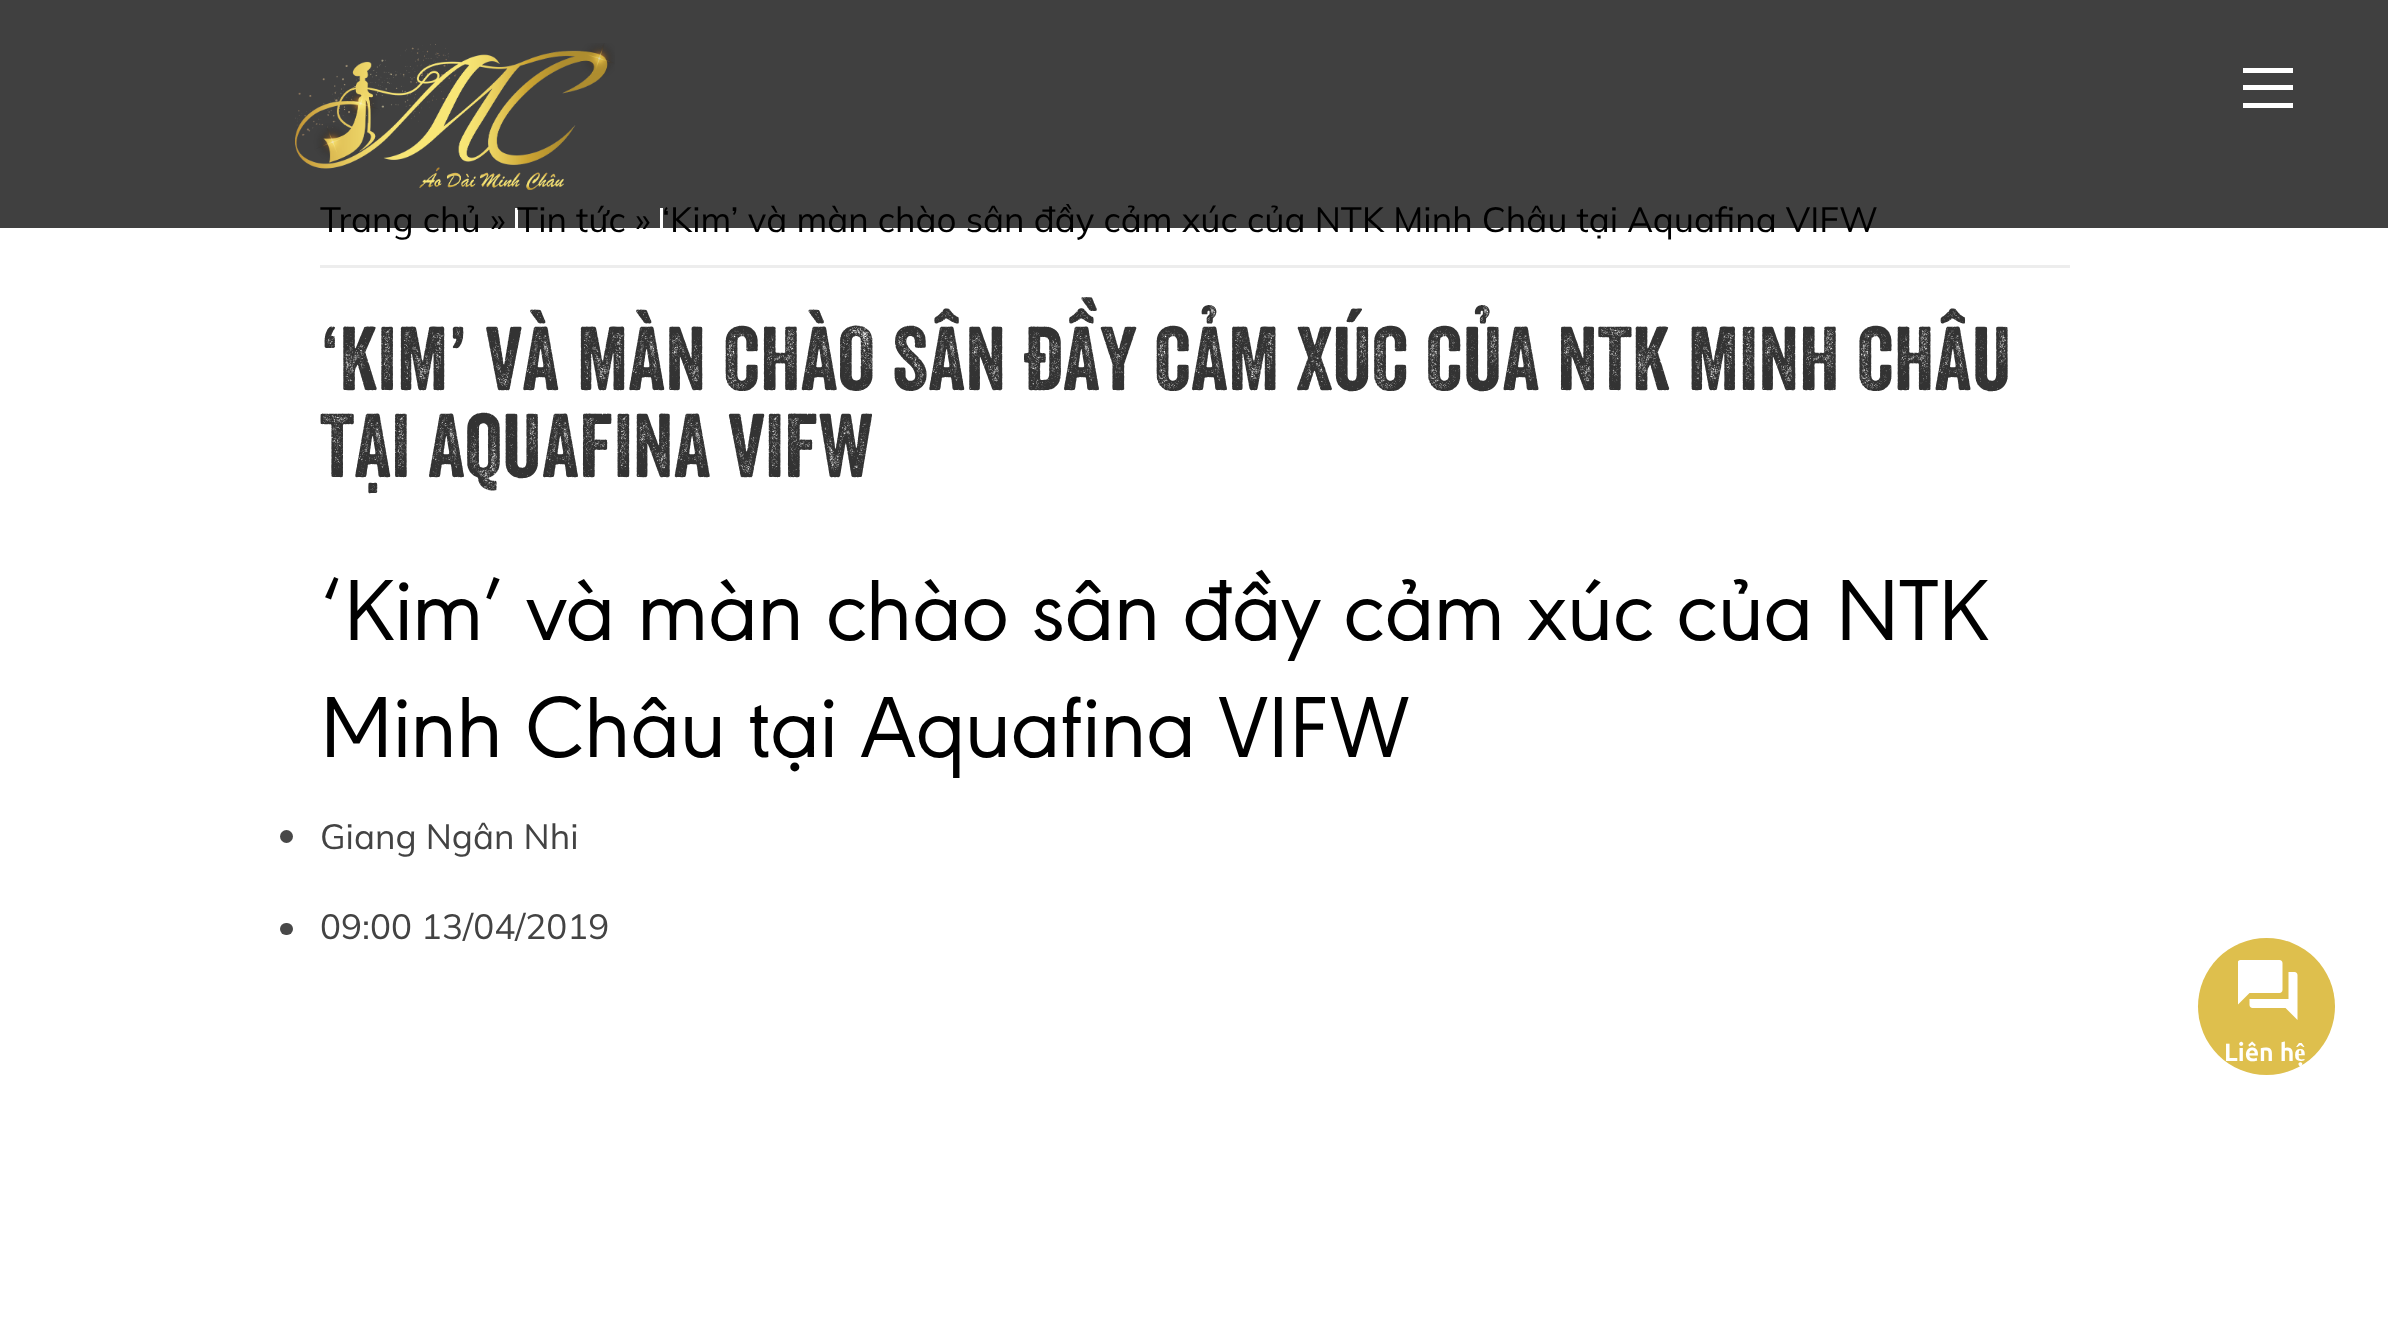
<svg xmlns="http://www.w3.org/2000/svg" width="2388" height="1337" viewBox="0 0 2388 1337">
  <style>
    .t1 { font: 35px Mulish; fill: #000; }
    .t2 { font: 87.5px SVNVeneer; fill: #333; }
    .t3 { font: 90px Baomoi; fill: #000; }
    .t4 { font: 35px Mulish; fill: #434343; }
    .t5 { font: bold 25px Ubuntu; fill: #fff; }
  </style>
  <rect width="100%" height="100%" fill="#fff"/>
  <rect x="0" y="0" width="2388" height="228" fill="#404040"/>
  <image x="295" y="43" width="320" height="147" href="images/1.png"/>
  <rect x="2243" y="68" width="50" height="5" fill="#fff"/>
  <rect x="2243" y="85" width="50" height="5" fill="#fff"/>
  <rect x="2243" y="103" width="50" height="5" fill="#fff"/>
  <rect x="320" y="265" width="1750" height="3" fill="#ededed"/>
  <text x="320" y="232" class="t1">Trang chủ »</text>
  <rect x="515" y="208" width="3" height="20" fill="#fff"/>
  <text x="517" y="232" class="t1">Tin tức »</text>
  <rect x="660" y="208" width="3" height="20" fill="#fff"/>
  <text x="662" y="232" class="t1">‘Kim’ và màn chào sân đầy cảm xúc của NTK Minh Châu tại Aquafina VIFW</text>
  <text x="320" y="390" class="t2">‘KIM’ VÀ MÀN CHÀO SÂN ĐẦY CẢM XÚC CỦA NTK MINH CHÂU</text>
  <text x="320" y="477" class="t2">TẠI AQUAFINA VIFW</text>
  <text x="320" y="640" class="t3">‘Kim’ và màn chào sân đầy cảm xúc của NTK</text>
  <text x="320" y="757" class="t3">Minh Châu tại Aquafina VIFW</text>
  <circle cx="286.5" cy="836.5" r="6.5" fill="#484848"/>
  <text x="320" y="849" class="t4">Giang Ngân Nhi</text>
  <rect x="280" y="923" width="13" height="12" rx="6" fill="#484848"/>
  <text x="320" y="939" class="t4">09:00 13/04/2019</text>
  <circle cx="2266.5" cy="1006.5" r="68.5" fill="#debf4d"/>
  <image x="2238" y="960" width="60" height="60" href="images/2.png"/>
  <text x="2224" y="1061" class="t5">Liên hệ</text>
</svg>
